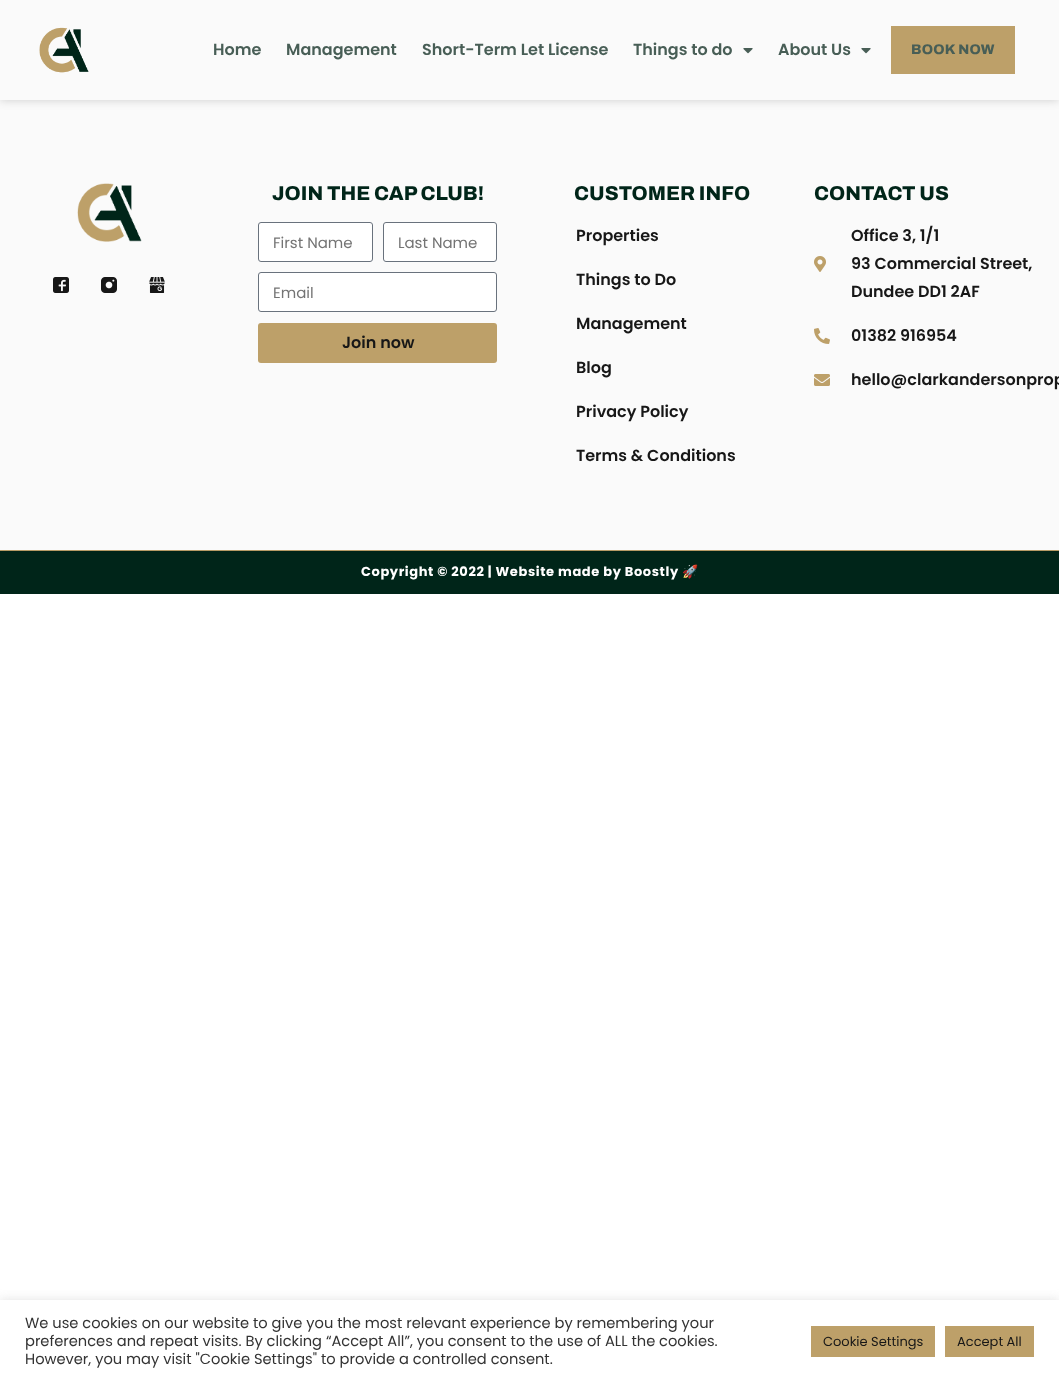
<svg xmlns="http://www.w3.org/2000/svg" width="1059" height="1382" viewBox="0 0 1059 1382">
  <style>
    .t1 { font: 600 16px Poppins; fill: #485e56; }
    .t2 { font: 800 14px Archivo; letter-spacing: 0.25px; fill: #485e56; }
    .t3 { font: 800 20px Archivo; fill: #002519; }
    .t4 { font: 15px Poppins; fill: #747474; }
    .t5 { font: 600 16px Poppins; fill: #171717; }
    .t6 { font: bold 13px Poppins; letter-spacing: 0.6px; fill: #fff; }
    .t7 { font: bold 13px Noto Color Emoji; letter-spacing: 0.6px; fill: #fff; }
    .t8 { font: 14.65px Poppins; fill: #333; }
    .t9 { font: 13px Poppins; fill: #171717; }
  </style>
  <rect width="100%" height="100%" fill="#fff"/>
  <rect x="0" y="551" width="1059" height="43" fill="#002519"/>
  <rect x="0" y="550" width="1059" height="1" fill="#bda069"/>
  <rect x="0" y="99" width="1059" height="450" fill="#00000014" filter="blur(3px)"/>
  <rect x="0" y="100" width="1059" height="450" fill="#fafafa"/>
  <rect x="0" y="0" width="1059" height="100" fill="#0000002e" filter="blur(5px)"/>
  <rect x="0" y="0" width="1059" height="100" fill="#fafafa"/>
  <image x="39" y="27" width="50" height="46" href="images/1.png"/>
  <text x="213" y="55" class="t1">Home</text>
  <text x="286" y="55" class="t1">Management</text>
  <text x="422" y="55" class="t1">Short-Term Let License</text>
  <text x="633" y="55" class="t1">Things to do</text>
  <image x="743" y="48" width="10" height="6" href="images/2.png"/>
  <text x="778" y="55" class="t1">About Us</text>
  <image x="861" y="48" width="10" height="6" href="images/2.png"/>
  <rect x="891" y="26" width="124" height="48" fill="#bda069"/>
  <text x="911" y="54" class="t2">BOOK NOW</text>
  <image x="77" y="183" width="65" height="59" href="images/3.png"/>
  <image x="53" y="277" width="16" height="16" href="images/4.png"/>
  <image x="101" y="277" width="16" height="16" href="images/5.png"/>
  <image x="149" y="277" width="16" height="16" href="images/6.png"/>
  <text x="272" y="200" class="t3">JOIN THE CAP CLUB!</text>
  <rect x="258.5" y="222.5" width="114" height="39" rx="2.5" fill="#fff" stroke="#69727d"/>
  <text x="273" y="248" class="t4">First Name</text>
  <rect x="383.5" y="222.5" width="113" height="39" rx="2.5" fill="#fff" stroke="#69727d"/>
  <text x="398" y="248" class="t4">Last Name</text>
  <rect x="258.5" y="272.5" width="238" height="39" rx="2.5" fill="#fff" stroke="#69727d"/>
  <text x="273" y="298" class="t4">Email</text>
  <rect x="258" y="323" width="239" height="40" rx="3" fill="#bda069"/>
  <text x="342" y="348" class="t5">Join now</text>
  <text x="574" y="200" class="t3">CUSTOMER INFO</text>
  <text x="576" y="241" class="t5">Properties</text>
  <text x="576" y="285" class="t5">Things to Do</text>
  <text x="576" y="329" class="t5">Management</text>
  <text x="576" y="373" class="t5">Blog</text>
  <text x="576" y="417" class="t5">Privacy Policy</text>
  <text x="576" y="461" class="t5">Terms &amp; Conditions</text>
  <text x="814" y="200" class="t3">CONTACT US</text>
  <image x="814" y="256" width="12" height="16" href="images/7.png"/>
  <text x="851" y="241" class="t5">Office 3, 1/1</text>
  <text x="851" y="269" class="t5">93 Commercial Street,</text>
  <text x="851" y="297" class="t5">Dundee DD1 2AF</text>
  <image x="814" y="328" width="16" height="16" href="images/8.png"/>
  <text x="851" y="341" class="t5">01382 916954</text>
  <image x="814" y="374" width="16" height="12" href="images/9.png"/>
  <text x="851" y="385" class="t5">hello@clarkandersonprop</text>
  <text x="361" y="576" class="t6">Copyright © 2022 | Website made by Boostly</text>
  <text x="682" y="576" class="t7">🚀</text>
  <rect x="0" y="1299" width="1059" height="82" fill="#acabab4d" filter="blur(5px)"/>
  <rect x="0" y="1300" width="1059" height="82" fill="#fff"/>
  <text x="25" y="1328" class="t8">We use cookies on our website to give you the most relevant experience by remembering your</text>
  <text x="25" y="1346" class="t8">preferences and repeat visits. By clicking “Accept All”, you consent to the use of ALL the cookies.</text>
  <text x="25" y="1364" class="t8">However, you may visit "Cookie Settings" to provide a controlled consent.</text>
  <rect x="811" y="1326" width="124" height="31" fill="#bda069"/>
  <text x="823" y="1346" class="t9">Cookie Settings</text>
  <rect x="945" y="1326" width="89" height="31" fill="#bda069"/>
  <text x="957" y="1346" class="t9">Accept All</text>
</svg>
